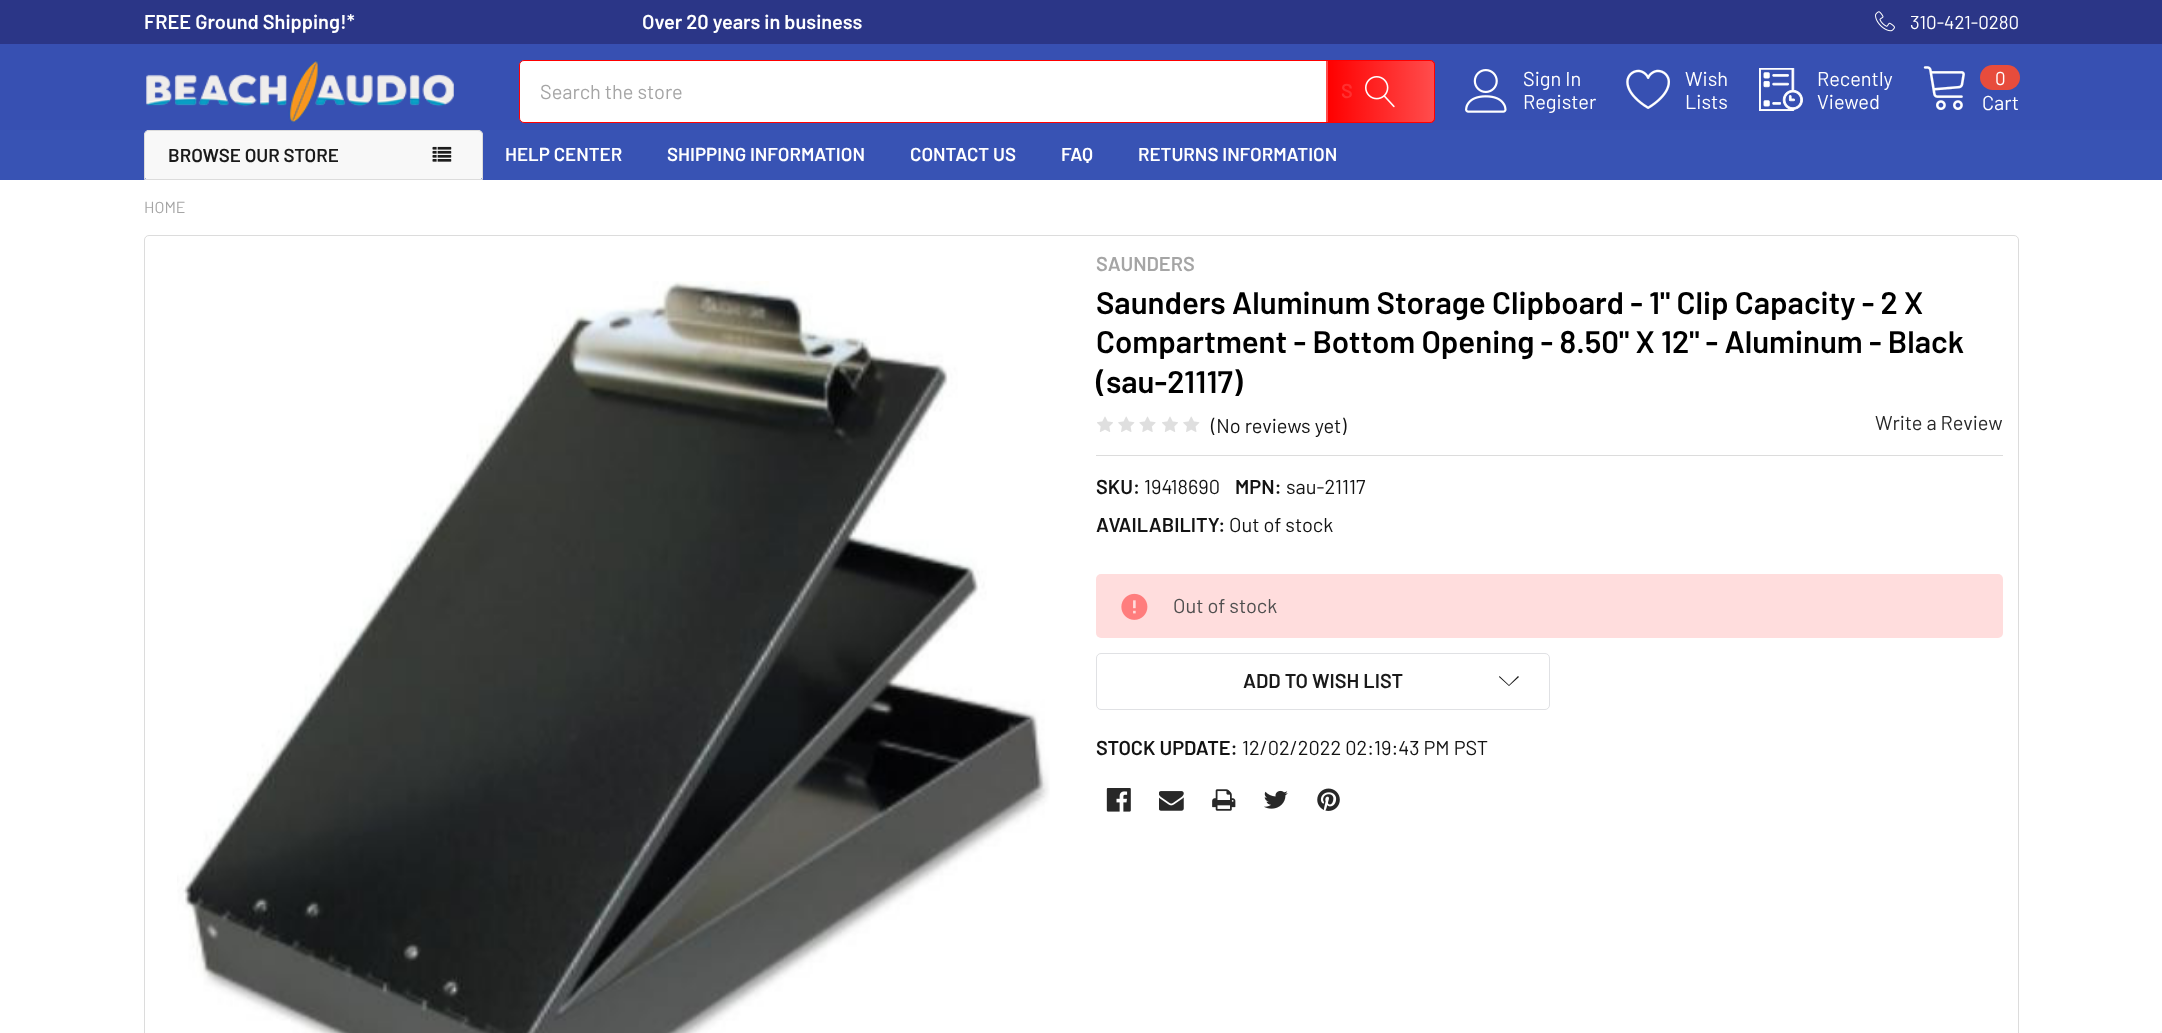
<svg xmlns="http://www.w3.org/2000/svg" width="2162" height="1033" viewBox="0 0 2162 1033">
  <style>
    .t1 { font: 600 20px Barlow; fill: #fff; }
    .t2 { font: 18.75px Barlow; fill: #fff; }
    .t3 { font: 20px Barlow; fill: #a5a5a5; }
    .t4 { font: 600 20px Barlow; fill: #ff2f2f; }
    .t5 { font: 20px Barlow; fill: #fff; }
    .t6 { font: 600 18.75px Barlow; fill: #1a1a1a; }
    .t7 { font: 600 18.75px Barlow; fill: #fff; }
    .t8 { font: 16px Barlow; fill: #a5a5a5; }
    .t9 { font: 600 20px Barlow; fill: #a5a5a5; }
    .t10 { font: 600 31.25px Barlow; fill: #000; }
    .t11 { font: 20px Barlow; fill: #131313; }
    .t12 { font: 20px Barlow; fill: #282828; }
    .t13 { font: 600 20px Barlow; fill: #131313; }
    .t14 { font: 20px Barlow; fill: #4f4f4f; }
    .t15 { font: 600 20px Barlow; fill: #1a1a1a; }
  </style>
  <defs>
    <clipPath id="clip1"><path d="M1326 60H1430C1433 60 1435 62 1435 65V118C1435 121 1433 123 1430 123H1326Z"/></clipPath>
    <linearGradient id="g1" gradientUnits="userSpaceOnUse" x1="1328" y1="91" x2="1434" y2="91"><stop offset="0" stop-color="#f00"/><stop offset="1" stop-color="#f00" stop-opacity="0.7"/></linearGradient>
    <linearGradient id="g2" gradientUnits="userSpaceOnUse" x1="1221" y1="91" x2="1328" y2="91"><stop offset="0" stop-color="#f00"/><stop offset="1" stop-color="#f00" stop-opacity="0.7"/></linearGradient>
    <linearGradient id="g3" gradientUnits="userSpaceOnUse" x1="1434" y1="91" x2="1540" y2="91"><stop offset="0" stop-color="#f00"/><stop offset="1" stop-color="#f00" stop-opacity="0.7"/></linearGradient>
  </defs>
  <rect width="100%" height="100%" fill="#fff"/>
  <rect x="0" y="45" width="2162" height="85" fill="#3750b2"/>
  <rect x="0" y="0" width="2162" height="44" fill="#2b3687"/>
  <rect x="0" y="44" width="2162" height="1" fill="#384fb2"/>
  <text x="144" y="29" class="t1">FREE Ground Shipping!*</text>
  <text x="642" y="29" class="t1">Over 20 years in business</text>
  <image x="1875" y="11" width="20" height="21" href="images/1.png"/>
  <text x="1910" y="29" class="t2">310-421-0280</text>
  <image x="146" y="60" width="308" height="63" href="images/2.png"/>
  <rect x="519.5" y="60.5" width="915" height="62" rx="4.5" fill="#fff" stroke="#f00"/>
  <text x="540" y="99" class="t3">Search the store</text>
  <g clip-path="url(#clip1)">
    <rect x="1328" y="60" width="106" height="63" fill="url(#g1)"/>
  </g>
  <text x="1341" y="98" class="t4">S</text>
  <rect x="1326" y="60" width="2" height="63" fill="url(#g2)"/>
  <g clip-path="url(#clip1)">
    <rect x="1434" y="60" width="1" height="63" fill="url(#g3)"/>
  </g>
  <image x="1365" y="76" width="30" height="32" href="images/3.png"/>
  <image x="1465" y="69" width="42" height="44" href="images/4.png"/>
  <text x="1523" y="86" class="t5">Sign In</text>
  <text x="1523" y="109" class="t5">Register</text>
  <image x="1626" y="69" width="44" height="40" href="images/5.png"/>
  <text x="1685" y="86" class="t5">Wish</text>
  <text x="1685" y="109" class="t5">Lists</text>
  <image x="1759" y="68" width="44" height="43" href="images/6.png"/>
  <text x="1817" y="86" class="t5">Recently</text>
  <text x="1817" y="109" class="t5">Viewed</text>
  <image x="1923" y="66" width="42" height="44" href="images/7.png"/>
  <rect x="1980" y="65" width="40" height="25" rx="12.5" fill="#e74c3c"/>
  <text x="1995" y="85" class="t2">0</text>
  <text x="1982" y="110" class="t5">Cart</text>
  <rect x="0" y="130" width="2162" height="50" fill="#3853b4"/>
  <rect x="144" y="130" width="339" height="50" rx="5" fill="#f8f8f8"/>
  <path d="M149 130.5H478C480.5 130.5 482.5 132.5 482.5 135V179.5H144.5V135C144.5 132.5 146.5 130.5 149 130.5Z" fill="none" stroke="#dcdcdc"/>
  <text x="168" y="162" class="t6">BROWSE OUR STORE</text>
  <image x="432" y="146" width="20" height="16" href="images/8.png"/>
  <text x="505" y="161" class="t7">HELP CENTER</text>
  <text x="667" y="161" class="t7">SHIPPING INFORMATION</text>
  <text x="910" y="161" class="t7">CONTACT US</text>
  <text x="1061" y="161" class="t7">FAQ</text>
  <text x="1138" y="161" class="t7">RETURNS INFORMATION</text>
  <text x="144" y="213" class="t8">HOME</text>
  <rect x="144.5" y="235.5" width="1874" height="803" rx="4.5" fill="none" stroke="#dcdcdc"/>
  <image x="177" y="281" width="873" height="752" href="images/9.png"/>
  <text x="1096" y="271" class="t9">SAUNDERS</text>
  <text x="1096" y="314" class="t10">Saunders Aluminum Storage Clipboard - 1" Clip Capacity - 2 X</text>
  <text x="1096" y="353" class="t10">Compartment - Bottom Opening - 8.50" X 12" - Aluminum - Black</text>
  <text x="1096" y="393" class="t10">(sau-21117)</text>
  <image x="1097" y="416" width="16" height="16" href="images/10.png"/>
  <image x="1118" y="416" width="17" height="16" href="images/11.png"/>
  <image x="1139" y="416" width="17" height="16" href="images/12.png"/>
  <image x="1162" y="416" width="16" height="16" href="images/10.png"/>
  <image x="1183" y="416" width="17" height="16" href="images/11.png"/>
  <text x="1211" y="433" class="t11">(No reviews yet)</text>
  <text x="1875" y="430" class="t12">Write a Review</text>
  <rect x="1096" y="455" width="907" height="1" fill="#dcdcdc"/>
  <text x="1096" y="494" class="t13">SKU:</text>
  <text x="1144" y="494" class="t11">19418690</text>
  <text x="1235" y="494" class="t13">MPN:</text>
  <text x="1286" y="494" class="t11">sau-21117</text>
  <text x="1096" y="532" class="t13">AVAILABILITY:</text>
  <text x="1229" y="532" class="t11">Out of stock</text>
  <rect x="1096" y="574" width="907" height="64" rx="5" fill="#fdd"/>
  <image x="1121" y="593" width="27" height="27" href="images/13.png"/>
  <text x="1173" y="613" class="t14">Out of stock</text>
  <rect x="1096.5" y="653.5" width="453" height="56" rx="4.5" fill="none" stroke="#e0e1e4"/>
  <text x="1243" y="688" class="t15">ADD TO WISH LIST</text>
  <path d="M1509 685L1518 676L1519 677L1509 686L1499 677L1499.5 676Z" fill="#1a1a1a" fill-rule="evenodd"/>
  <text x="1096" y="755" class="t13">STOCK UPDATE:</text>
  <text x="1242" y="755" class="t11">12/02/2022 02:19:43 PM PST</text>
  <image x="1106" y="788" width="25" height="24" href="images/14.png"/>
  <image x="1159" y="791" width="25" height="20" href="images/15.png"/>
  <image x="1212" y="789" width="24" height="22" href="images/16.png"/>
  <image x="1264" y="790" width="24" height="19" href="images/17.png"/>
  <image x="1317" y="788" width="23" height="23" href="images/18.png"/>
  <rect x="2160" y="1031" width="2" height="2" fill="#f5f5f5"/>
</svg>
